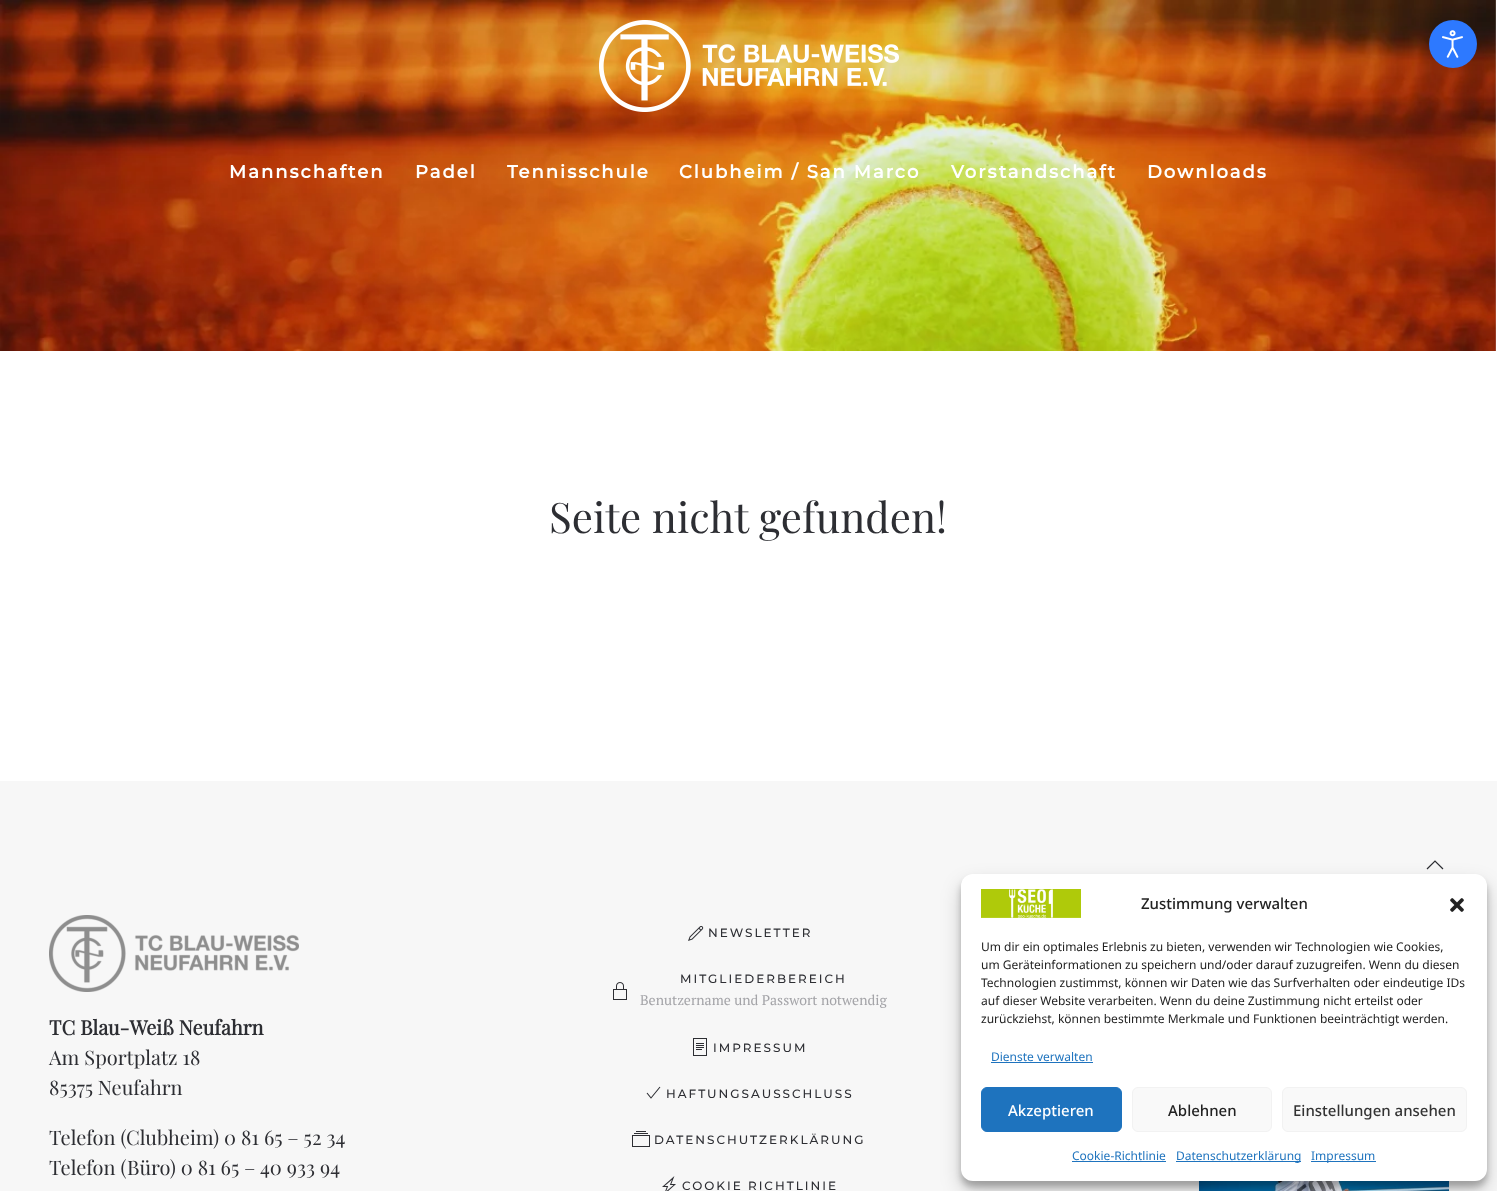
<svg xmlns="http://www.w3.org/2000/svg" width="1497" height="1191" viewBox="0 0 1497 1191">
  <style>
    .t1 { font: bold 18px Montserrat; letter-spacing: 2px; fill: #fff; }
    .t2 { font: 42px Playfair Display; fill: #2d2e33; }
    .t3 { font: bold 20px Playfair Display; fill: #2d2e33; }
    .t4 { font: 20px Playfair Display; fill: #2d2e33; }
    .t5 { font: 100 12px Montserrat; letter-spacing: 2px; fill: #2d2e33; }
    .t6 { font: 14px PT Serif; fill: #a4a4a8; }
    .t7 { font: 500 15px Noto Sans; fill: #222; }
    .t8 { font: 12px Noto Sans; fill: #222; }
    .t9 { font: 12px Noto Sans; fill: #1e73be; }
    .t10 { font: 500 15px Noto Sans; fill: #fff; }
    .t11 { font: 500 15px Noto Sans; fill: #333; }
  </style>
  <rect width="100%" height="100%" fill="#fff"/>
  <image x="0" y="0" width="1496" height="351" href="images/3.png"/>
  <circle cx="1453" cy="44" r="24" fill="#2d79ff"/>
  <image x="1442" y="30" width="21" height="28" href="images/1.png"/>
  <image x="599" y="20" width="300" height="92" href="images/2.png"/>
  <text x="229" y="178" class="t1">Mannschaften</text>
  <text x="415" y="178" class="t1">Padel</text>
  <text x="507" y="178" class="t1">Tennisschule</text>
  <text x="679" y="178" class="t1">Clubheim / San Marco</text>
  <text x="951" y="178" class="t1">Vorstandschaft</text>
  <text x="1147" y="178" class="t1">Downloads</text>
  <text x="549" y="533" class="t2">Seite nicht gefunden!</text>
  <rect x="0" y="781" width="1497" height="410" fill="#f7f7f7"/>
  <path d="M1427 869L1435 861L1443 869" fill="none" stroke="#2d2e33" stroke-width="1.2"/>
  <image x="49" y="915" width="250" height="77" href="images/4.png"/>
  <text x="49" y="1035" class="t3">TC Blau-Weiß Neufahrn</text>
  <text x="49" y="1065" class="t4">Am Sportplatz 18</text>
  <text x="49" y="1095" class="t4">85375 Neufahrn</text>
  <text x="49" y="1145" class="t4">Telefon (Clubheim) 0 81 65 – 52 34</text>
  <text x="49" y="1175" class="t4">Telefon (Büro) 0 81 65 – 40 933 94</text>
  <image x="688" y="925" width="16" height="16" href="images/5.png"/>
  <text x="708" y="937" class="t5">NEWSLETTER</text>
  <image x="613" y="982" width="14" height="18" href="images/6.png"/>
  <text x="680" y="983" class="t5">MITGLIEDERBEREICH</text>
  <text x="640" y="1005" class="t6">Benutzername und Passwort notwendig</text>
  <image x="693" y="1038" width="14" height="18" href="images/7.png"/>
  <text x="713" y="1052" class="t5">IMPRESSUM</text>
  <path d="M647 1093L651 1098L660 1087" fill="none" stroke="#2d2e33" stroke-width="1.1"/>
  <text x="666" y="1098" class="t5">HAFTUNGSAUSSCHLUSS</text>
  <rect x="636" y="1131" width="10" height="1" fill="#2d2e33"/>
  <rect x="634" y="1133" width="14" height="1" fill="#2d2e33"/>
  <rect x="632.5" y="1135.5" width="17" height="11" fill="none" stroke="#2d2e33"/>
  <text x="654" y="1144" class="t5">DATENSCHUTZERKLÄRUNG</text>
  <image x="662" y="1176" width="14" height="15" href="images/8.png"/>
  <text x="682" y="1190" class="t5">COOKIE RICHTLINIE</text>
  <image x="1199" y="1181" width="250" height="10" href="images/9.png"/>
  <rect x="961" y="880" width="526" height="307" rx="12" fill="#0000003b" filter="blur(3px)"/>
  <rect x="961" y="884" width="526" height="307" rx="12" fill="#00000030" filter="blur(10px)"/>
  <rect x="961" y="874" width="526" height="307" rx="12" fill="#fff"/>
  <image x="981" y="889" width="100" height="29" href="images/10.png"/>
  <text x="1141" y="909" class="t7">Zustimmung verwalten</text>
  <image x="1450" y="898" width="14" height="14" href="images/11.png"/>
  <text x="981" y="951" class="t8">Um dir ein optimales Erlebnis zu bieten, verwenden wir Technologien wie Cookies,</text>
  <text x="981" y="969" class="t8">um Geräteinformationen zu speichern und/oder darauf zuzugreifen. Wenn du diesen</text>
  <text x="981" y="987" class="t8">Technologien zustimmst, können wir Daten wie das Surfverhalten oder eindeutige IDs</text>
  <text x="981" y="1005" class="t8">auf dieser Website verarbeiten. Wenn du deine Zustimmung nicht erteilst oder</text>
  <text x="981" y="1023" class="t8">zurückziehst, können bestimmte Merkmale und Funktionen beeinträchtigt werden.</text>
  <text x="991" y="1061" class="t9">Dienste verwalten</text>
  <rect x="991" y="1062" width="102" height="1" fill="#1e73be"/>
  <rect x="981.5" y="1087.5" width="140" height="44" rx="5.5" fill="#1e73be" stroke="#1e73be"/>
  <text x="1008" y="1116" class="t10">Akzeptieren</text>
  <rect x="1132.5" y="1087.5" width="139" height="44" rx="5.5" fill="#f9f9f9" stroke="#f2f2f2"/>
  <text x="1168" y="1116" class="t7">Ablehnen</text>
  <rect x="1282.5" y="1087.5" width="184" height="44" rx="5.5" fill="#f9f9f9" stroke="#f2f2f2"/>
  <text x="1293" y="1116" class="t11">Einstellungen ansehen</text>
  <text x="1072" y="1160" class="t9">Cookie-Richtlinie</text>
  <rect x="1072" y="1161" width="94" height="1" fill="#1e73be"/>
  <rect x="1176" y="1161" width="125" height="1" fill="#1e73be"/>
  <text x="1176" y="1160" class="t9">Datenschutzerklärung</text>
  <rect x="1311" y="1161" width="65" height="1" fill="#1e73be"/>
  <text x="1311" y="1160" class="t9">Impressum</text>
</svg>
